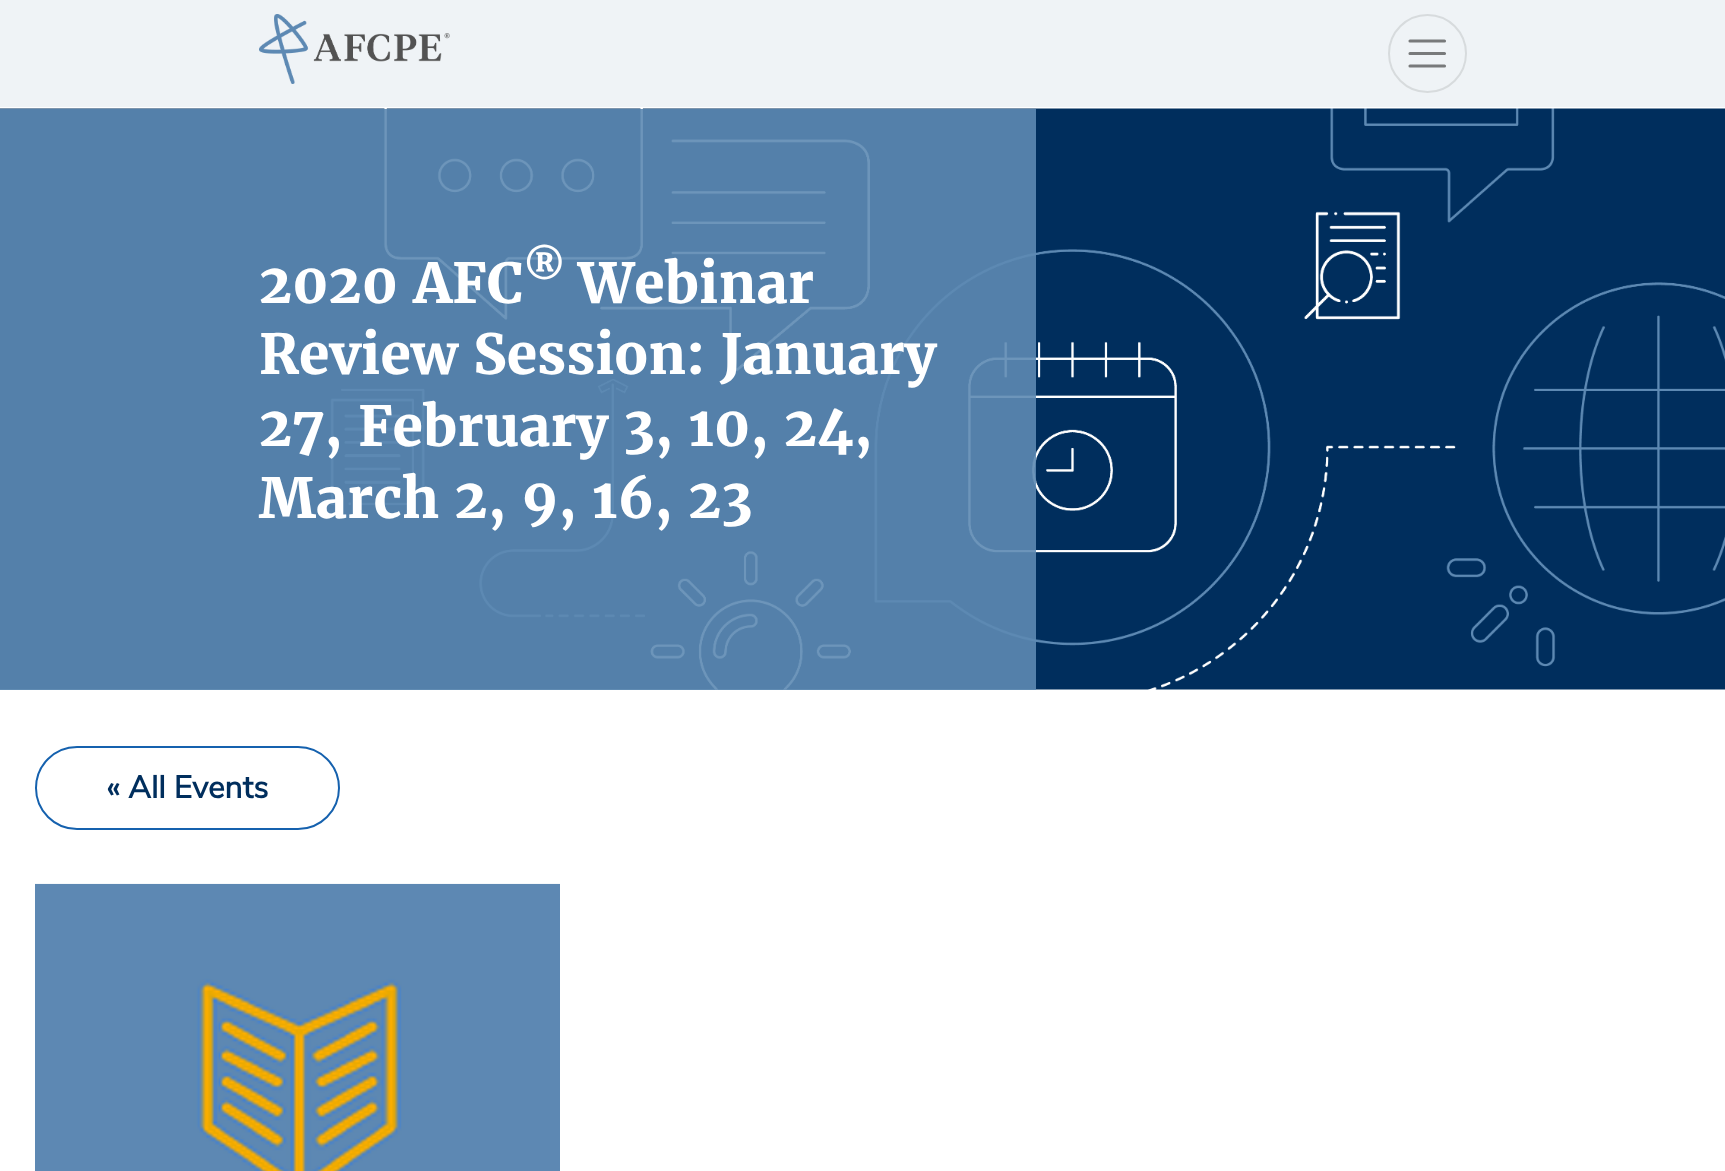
<svg xmlns="http://www.w3.org/2000/svg" width="1725" height="1171" viewBox="0 0 1725 1171">
  <style>
    .t1 { font: bold 55.1px Merriweather; fill: #fff; }
    .t2 { font: bold 41px Merriweather; fill: #fff; }
    .t3 { font: bold 31.5px Nunito Sans; fill: #002e5d; }
  </style>
  <rect width="100%" height="100%" fill="#eff3f6"/>
  <image x="259" y="14" width="191" height="70" href="images/1.png"/>
  <circle cx="1427.5" cy="53.5" r="38.5" fill="none" stroke="#d7dbdd" stroke-width="2"/>
  <path d="M1410 41H1444.5M1410 53.5H1444.5M1410 66H1444.5" fill="none" stroke="#787a7b" stroke-width="3.1" stroke-linecap="round"/>
  <rect x="0" y="107" width="1725" height="2" fill="#fff"/>
  <rect x="0" y="689" width="1725" height="482" fill="#fff"/>
  <image x="0" y="108" width="1725" height="582" href="images/2.png"/>
  <rect x="0" y="109" width="1036" height="581" fill="#5d89b3e6"/>
  <text x="259" y="303" class="t1">2020 AFC</text>
  <text x="523" y="282" class="t2">®</text>
  <text x="578" y="303" class="t1">Webinar</text>
  <text x="259" y="374" class="t1">Review Session: January</text>
  <text x="259" y="446" class="t1">27, February 3, 10, 24,</text>
  <text x="259" y="518" class="t1">March 2, 9, 16, 23</text>
  <rect x="36" y="747" width="303" height="82" rx="41" fill="none" stroke="#1561ae" stroke-width="2"/>
  <text x="106" y="798" class="t3">« All Events</text>
  <image x="35" y="883" width="525" height="288" href="images/3.png"/>
</svg>
